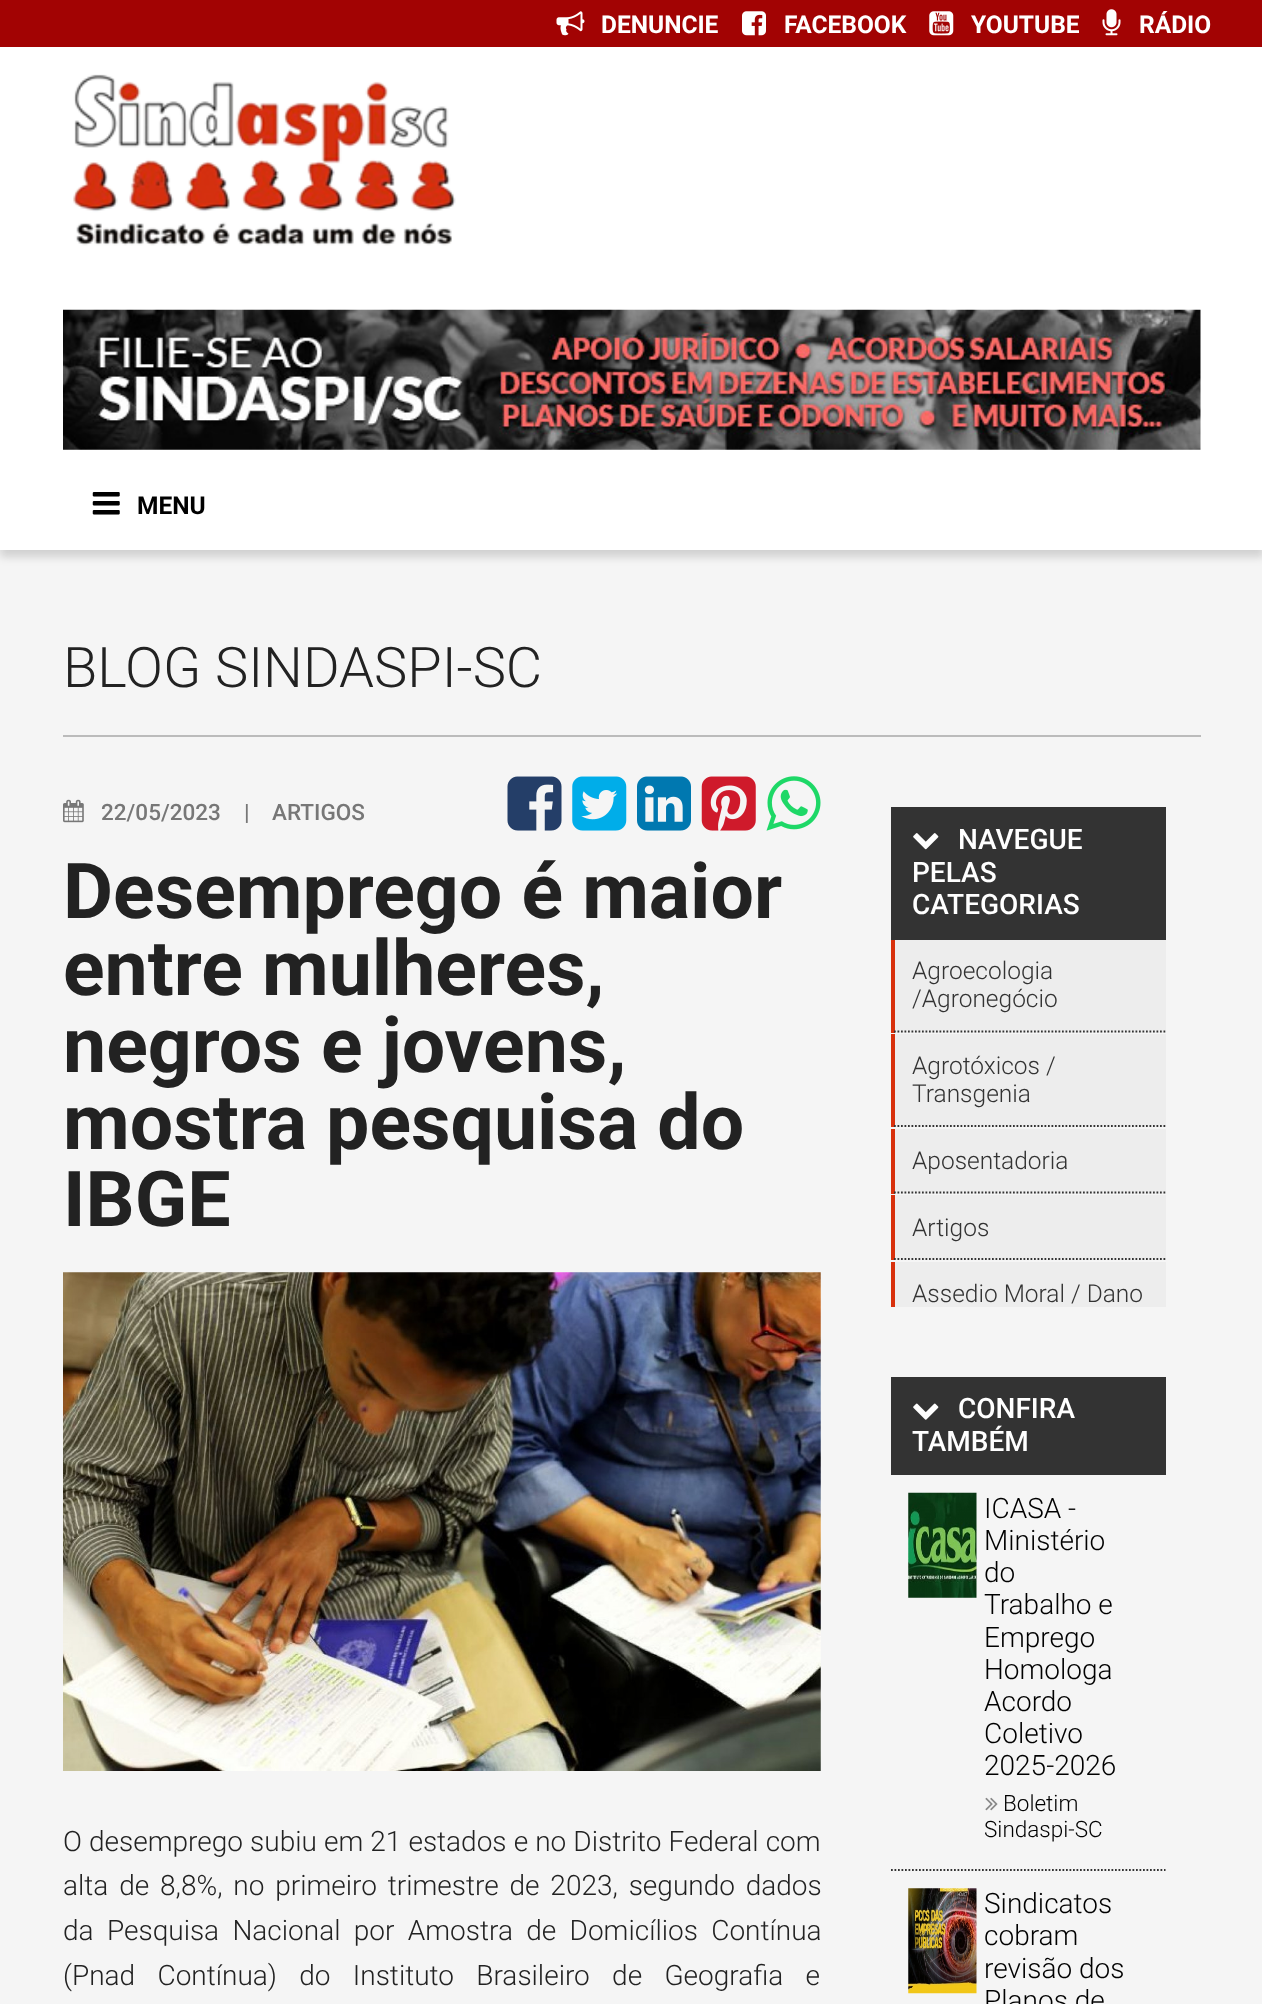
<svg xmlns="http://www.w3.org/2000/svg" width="1262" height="2004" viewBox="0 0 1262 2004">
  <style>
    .t1 { font: bold 24.5px Roboto; fill: #fff; }
    .t2 { font: bold 24.5px Roboto; fill: #000; }
    .t3 { font: 300 56px Roboto; fill: #222; }
    .t4 { font: 500 22.5px Roboto; fill: #777; }
    .t5 { font: bold 77px Roboto; fill: #222; }
    .t6 { font: 300 28px Roboto; fill: #222; }
    .t7 { font: 500 28px Roboto; fill: #fff; }
    .t8 { font: 300 24.5px Roboto; fill: #333; }
    .t9 { font: 300 28px Roboto; fill: #000; }
    .t10 { font: 300 22.5px Roboto; fill: #000; }
  </style>
  <rect width="100%" height="100%" fill="#f5f5f5"/>
  <rect x="0" y="54" width="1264" height="503" fill="#00000026" filter="blur(4.5px)"/>
  <rect x="0" y="0" width="1262" height="47" fill="#a20303"/>
  <image x="556" y="11" width="29" height="25" href="images/1.png"/>
  <text x="601" y="33" class="t1">DENUNCIE</text>
  <image x="742" y="11" width="24" height="25" href="images/2.png"/>
  <text x="784" y="33" class="t1">FACEBOOK</text>
  <image x="929" y="11" width="25" height="25" href="images/3.png"/>
  <text x="971" y="33" class="t1">YOUTUBE</text>
  <image x="1102" y="9" width="19" height="27" href="images/4.png"/>
  <text x="1139" y="33" class="t1">RÁDIO</text>
  <rect x="0" y="47" width="1262" height="503" fill="#fff"/>
  <image x="73" y="74" width="383" height="172" href="images/5.png"/>
  <image x="63" y="309" width="1138" height="141" href="images/6.png"/>
  <image x="92" y="492" width="28" height="23" href="images/7.png"/>
  <text x="137" y="514" class="t2">MENU</text>
  <text x="63" y="687" class="t3">BLOG SINDASPI-SC</text>
  <rect x="63" y="735" width="1138" height="2" fill="#bbb"/>
  <image x="63" y="799" width="21" height="24" href="images/8.png"/>
  <text x="101" y="820" class="t4">22/05/2023</text>
  <text x="244" y="820" class="t4">|</text>
  <text x="272" y="820" class="t4">ARTIGOS</text>
  <image x="507" y="776" width="55" height="55" href="images/9.png"/>
  <image x="572" y="776" width="55" height="55" href="images/10.png"/>
  <image x="637" y="776" width="54" height="55" href="images/11.png"/>
  <image x="701" y="776" width="55" height="55" href="images/12.png"/>
  <image x="766" y="776" width="55" height="55" href="images/13.png"/>
  <text x="63" y="918" class="t5">Desemprego é maior</text>
  <text x="63" y="995" class="t5">entre mulheres,</text>
  <text x="63" y="1072" class="t5">negros e jovens,</text>
  <text x="63" y="1149" class="t5">mostra pesquisa do</text>
  <text x="63" y="1226" class="t5">IBGE</text>
  <image x="63" y="1272" width="758" height="499" href="images/14.png"/>
  <text x="63" y="1851" word-spacing="0.25" class="t6">O desemprego subiu em 21 estados e no Distrito Federal com</text>
  <text x="63" y="1895" word-spacing="4" class="t6">alta de 8,8%, no primeiro trimestre de 2023, segundo dados</text>
  <text x="63" y="1940" word-spacing="6.5" class="t6">da Pesquisa Nacional por Amostra de Domicílios Contínua</text>
  <text x="63" y="1985" word-spacing="15.5" class="t6">(Pnad Contínua) do Instituto Brasileiro de Geografia e</text>
  <rect x="891" y="807" width="275" height="133" fill="#333"/>
  <image x="913" y="833" width="26" height="17" href="images/15.png"/>
  <text x="958" y="849" class="t7">NAVEGUE</text>
  <text x="912" y="882" class="t7">PELAS</text>
  <text x="912" y="914" class="t7">CATEGORIAS</text>
  <rect x="895" y="940" width="271" height="93" fill="#ededed"/>
  <rect x="891" y="940" width="4" height="93" fill="#d8300c"/>
  <path d="M894 1031.5H1165.5" fill="none" stroke="#333" stroke-width="1.8" stroke-dasharray="1.75 1.75"/>
  <text x="912" y="979" class="t8">Agroecologia</text>
  <text x="912" y="1007" class="t8">/Agronegócio</text>
  <rect x="895" y="1034" width="271" height="93" fill="#ededed"/>
  <rect x="891" y="1034" width="4" height="93" fill="#d8300c"/>
  <path d="M894 1126H1165.5" fill="none" stroke="#333" stroke-width="1.8" stroke-dasharray="1.75 1.75"/>
  <text x="912" y="1074" class="t8">Agrotóxicos /</text>
  <text x="912" y="1102" class="t8">Transgenia</text>
  <rect x="895" y="1129" width="271" height="65" fill="#ededed"/>
  <rect x="891" y="1129" width="4" height="65" fill="#d8300c"/>
  <path d="M894 1192.5H1165.5" fill="none" stroke="#333" stroke-width="1.8" stroke-dasharray="1.75 1.75"/>
  <text x="912" y="1169" class="t8">Aposentadoria</text>
  <rect x="895" y="1195" width="271" height="65" fill="#ededed"/>
  <rect x="891" y="1195" width="4" height="65" fill="#d8300c"/>
  <path d="M894 1259H1165.5" fill="none" stroke="#333" stroke-width="1.8" stroke-dasharray="1.75 1.75"/>
  <text x="912" y="1236" class="t8">Artigos</text>
  <rect x="895" y="1262" width="271" height="45" fill="#ededed"/>
  <rect x="891" y="1262" width="4" height="45" fill="#d8300c"/>
  <text x="912" y="1302" class="t8">Assedio Moral / Dano</text>
  <rect x="891" y="1377" width="275" height="98" fill="#333"/>
  <image x="913" y="1403" width="26" height="17" href="images/16.png"/>
  <text x="958" y="1418" class="t7">CONFIRA</text>
  <text x="912" y="1451" class="t7">TAMBÉM</text>
  <path d="M891 1870H1165.5" fill="none" stroke="#333" stroke-width="1.8" stroke-dasharray="1.75 1.75"/>
  <image x="908" y="1492" width="69" height="106" href="images/17.png"/>
  <text x="984" y="1518" class="t9">ICASA -</text>
  <text x="984" y="1550" class="t9">Ministério</text>
  <text x="984" y="1582" class="t9">do</text>
  <text x="984" y="1614" class="t9">Trabalho e</text>
  <text x="984" y="1647" class="t9">Emprego</text>
  <text x="984" y="1679" class="t9">Homologa</text>
  <text x="984" y="1711" class="t9">Acordo</text>
  <text x="984" y="1743" class="t9">Coletivo</text>
  <text x="984" y="1775" class="t9">2025-2026</text>
  <image x="985" y="1797" width="13" height="14" href="images/18.png"/>
  <text x="1003" y="1811" class="t10">Boletim</text>
  <text x="984" y="1837" class="t10">Sindaspi-SC</text>
  <image x="908" y="1888" width="69" height="106" href="images/19.png"/>
  <text x="984" y="1913" class="t9">Sindicatos</text>
  <text x="984" y="1945" class="t9">cobram</text>
  <text x="984" y="1978" class="t9">revisão dos</text>
  <text x="984" y="2010" class="t9">Planos de</text>
</svg>
